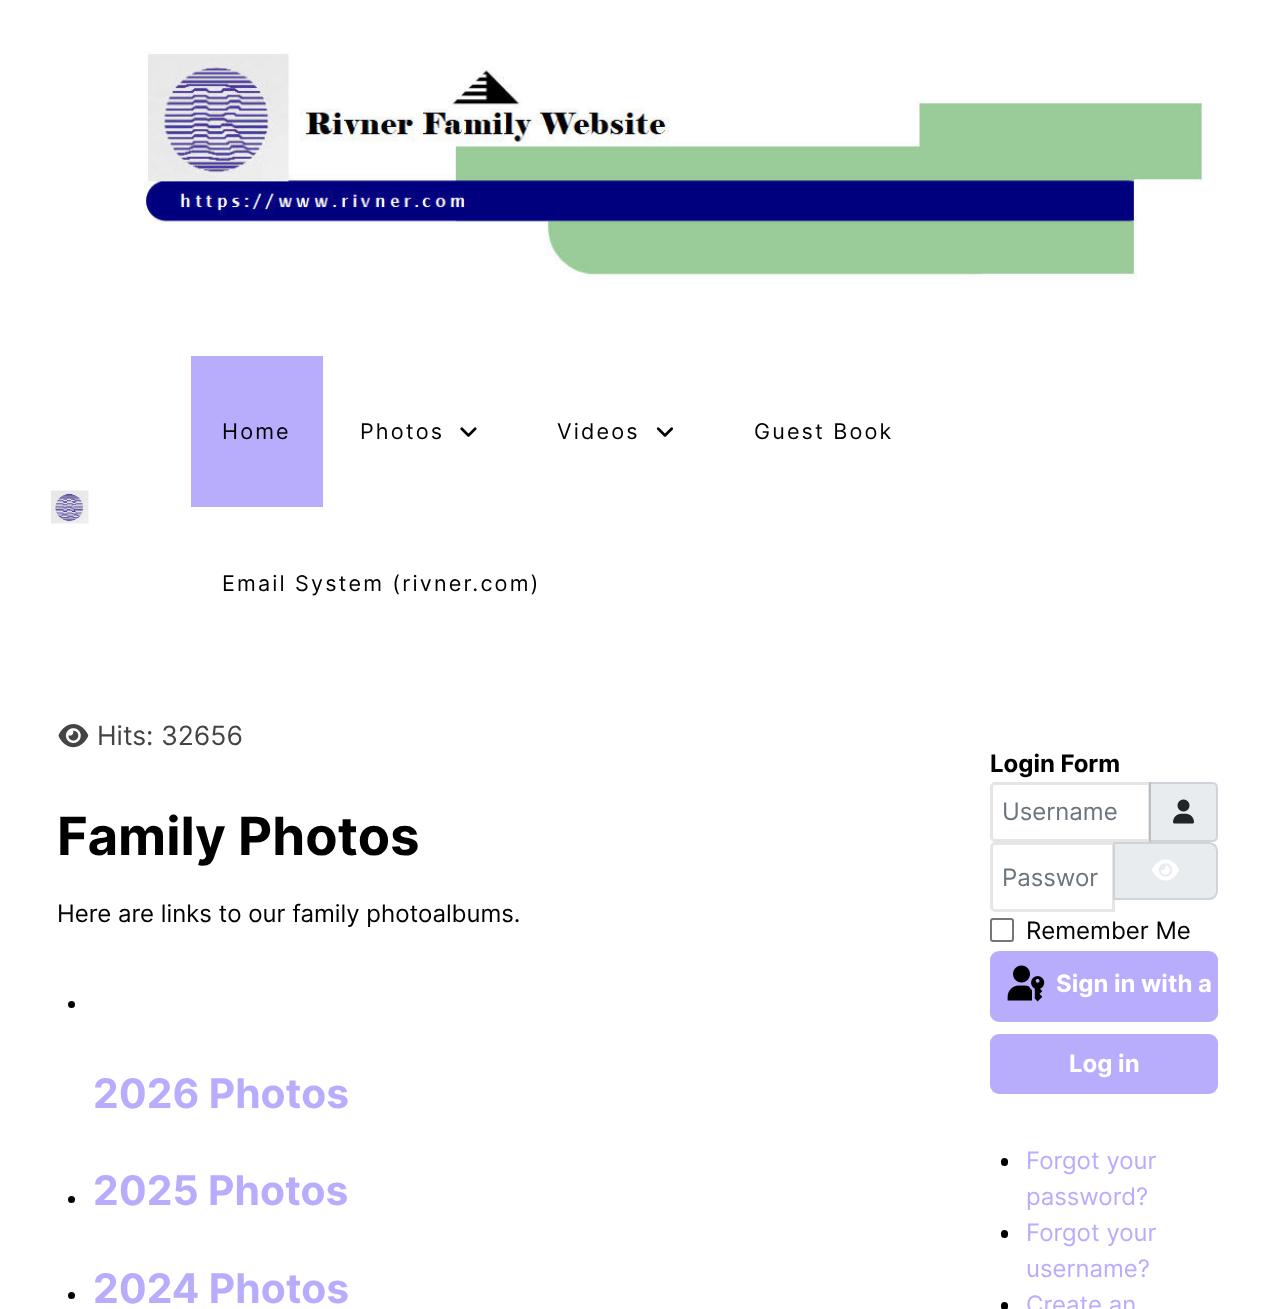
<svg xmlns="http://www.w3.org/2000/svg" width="1268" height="1309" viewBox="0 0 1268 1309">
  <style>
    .t1 { font: 21.6px Inter; letter-spacing: 2.15px; fill: #000; }
    .t2 { font: 26.5px Inter; fill: #444; }
    .t3 { font: bold 52.75px Inter; fill: #000; }
    .t4 { font: 24px Inter; fill: #000; }
    .t5 { font: bold 40.75px Inter; fill: #b8adfd; }
    .t6 { font: bold 24px Inter; fill: #000; }
    .t7 { font: 24px Inter; fill: #6c757d; }
    .t8 { font: bold 24px Inter; fill: #fff; }
    .t9 { font: 24px Inter; fill: #b8adfd; }
  </style>
  <rect width="100%" height="100%" fill="#fff"/>
  <image x="144" y="51" width="1059" height="230" href="images/1.png"/>
  <image x="51" y="490" width="38" height="34" href="images/2.png"/>
  <rect x="191" y="356" width="132" height="151" fill="#b8adfd"/>
  <text x="222" y="439" class="t1">Home</text>
  <text x="360" y="439" class="t1">Photos</text>
  <image x="460" y="427" width="17" height="10" href="images/3.png"/>
  <text x="557" y="439" class="t1">Videos</text>
  <image x="656" y="427" width="17" height="10" href="images/4.png"/>
  <text x="754" y="439" class="t1">Guest Book</text>
  <text x="222" y="591" class="t1">Email System (rivner.com)</text>
  <image x="58" y="724" width="31" height="24" href="images/5.png"/>
  <text x="97" y="745" class="t2">Hits: 32656</text>
  <text x="57" y="855" class="t3">Family Photos</text>
  <text x="57" y="922" class="t4">Here are links to our family photoalbums.</text>
  <circle cx="71.5" cy="1004.5" r="3.5" fill="#000"/>
  <text x="93" y="1108" class="t5">2026 Photos</text>
  <circle cx="71.5" cy="1199.5" r="3.5" fill="#000"/>
  <text x="93" y="1205" class="t5">2025 Photos</text>
  <circle cx="71.5" cy="1295.5" r="3.5" fill="#000"/>
  <text x="93" y="1303" class="t5">2024 Photos</text>
  <text x="990" y="772" class="t6">Login Form</text>
  <path d="M1150 783H1212C1215 783 1217 785 1217 788V836C1217 839 1215 841 1212 841H1150Z" fill="#e9ecef" stroke="#ced4da" stroke-width="2"/>
  <path d="M995 783.5H1149.5V840.5H995C993 840.5 991.5 839 991.5 837V787C991.5 785 993 783.5 995 783.5Z" fill="none" stroke="#0000001a" stroke-width="3"/>
  <text x="1002" y="820" class="t7">Username</text>
  <image x="1173" y="799" width="21" height="25" href="images/6.png"/>
  <path d="M995 843.5H1113.5V910.5H995C993 910.5 991.5 909 991.5 907V847C991.5 845 993 843.5 995 843.5Z" fill="none" stroke="#e6e6e6" stroke-width="3"/>
  <text x="1002" y="886" class="t7">Passwor</text>
  <path d="M1114 843H1209C1213.5 843 1217 846.5 1217 851V891C1217 895.5 1213.5 899 1209 899H1114Z" fill="#e9ecef" stroke="#ced4da" stroke-width="2"/>
  <image x="1152" y="859" width="27" height="22" href="images/7.png"/>
  <rect x="991" y="919" width="22" height="22" rx="2" fill="none" stroke="#767676" stroke-width="2"/>
  <text x="1026" y="939" class="t4">Remember Me</text>
  <rect x="990" y="951" width="228" height="71" rx="9" fill="#b8adfd"/>
  <image x="1007" y="965" width="38" height="37" href="images/8.png"/>
  <text x="1056" y="992" class="t8">Sign in with a</text>
  <rect x="990" y="1034" width="228" height="60" rx="9" fill="#b8adfd"/>
  <text x="1069" y="1072" class="t8">Log in</text>
  <rect x="1001" y="1158" width="7" height="8" rx="3.5" fill="#000"/>
  <text x="1026" y="1169" class="t9">Forgot your</text>
  <text x="1026" y="1205" class="t9">password?</text>
  <rect x="1001" y="1230" width="7" height="8" rx="3.5" fill="#000"/>
  <text x="1026" y="1241" class="t9">Forgot your</text>
  <text x="1026" y="1277" class="t9">username?</text>
  <rect x="1001" y="1302" width="7" height="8" rx="3.5" fill="#000"/>
  <text x="1026" y="1313" class="t9">Create an</text>
</svg>
